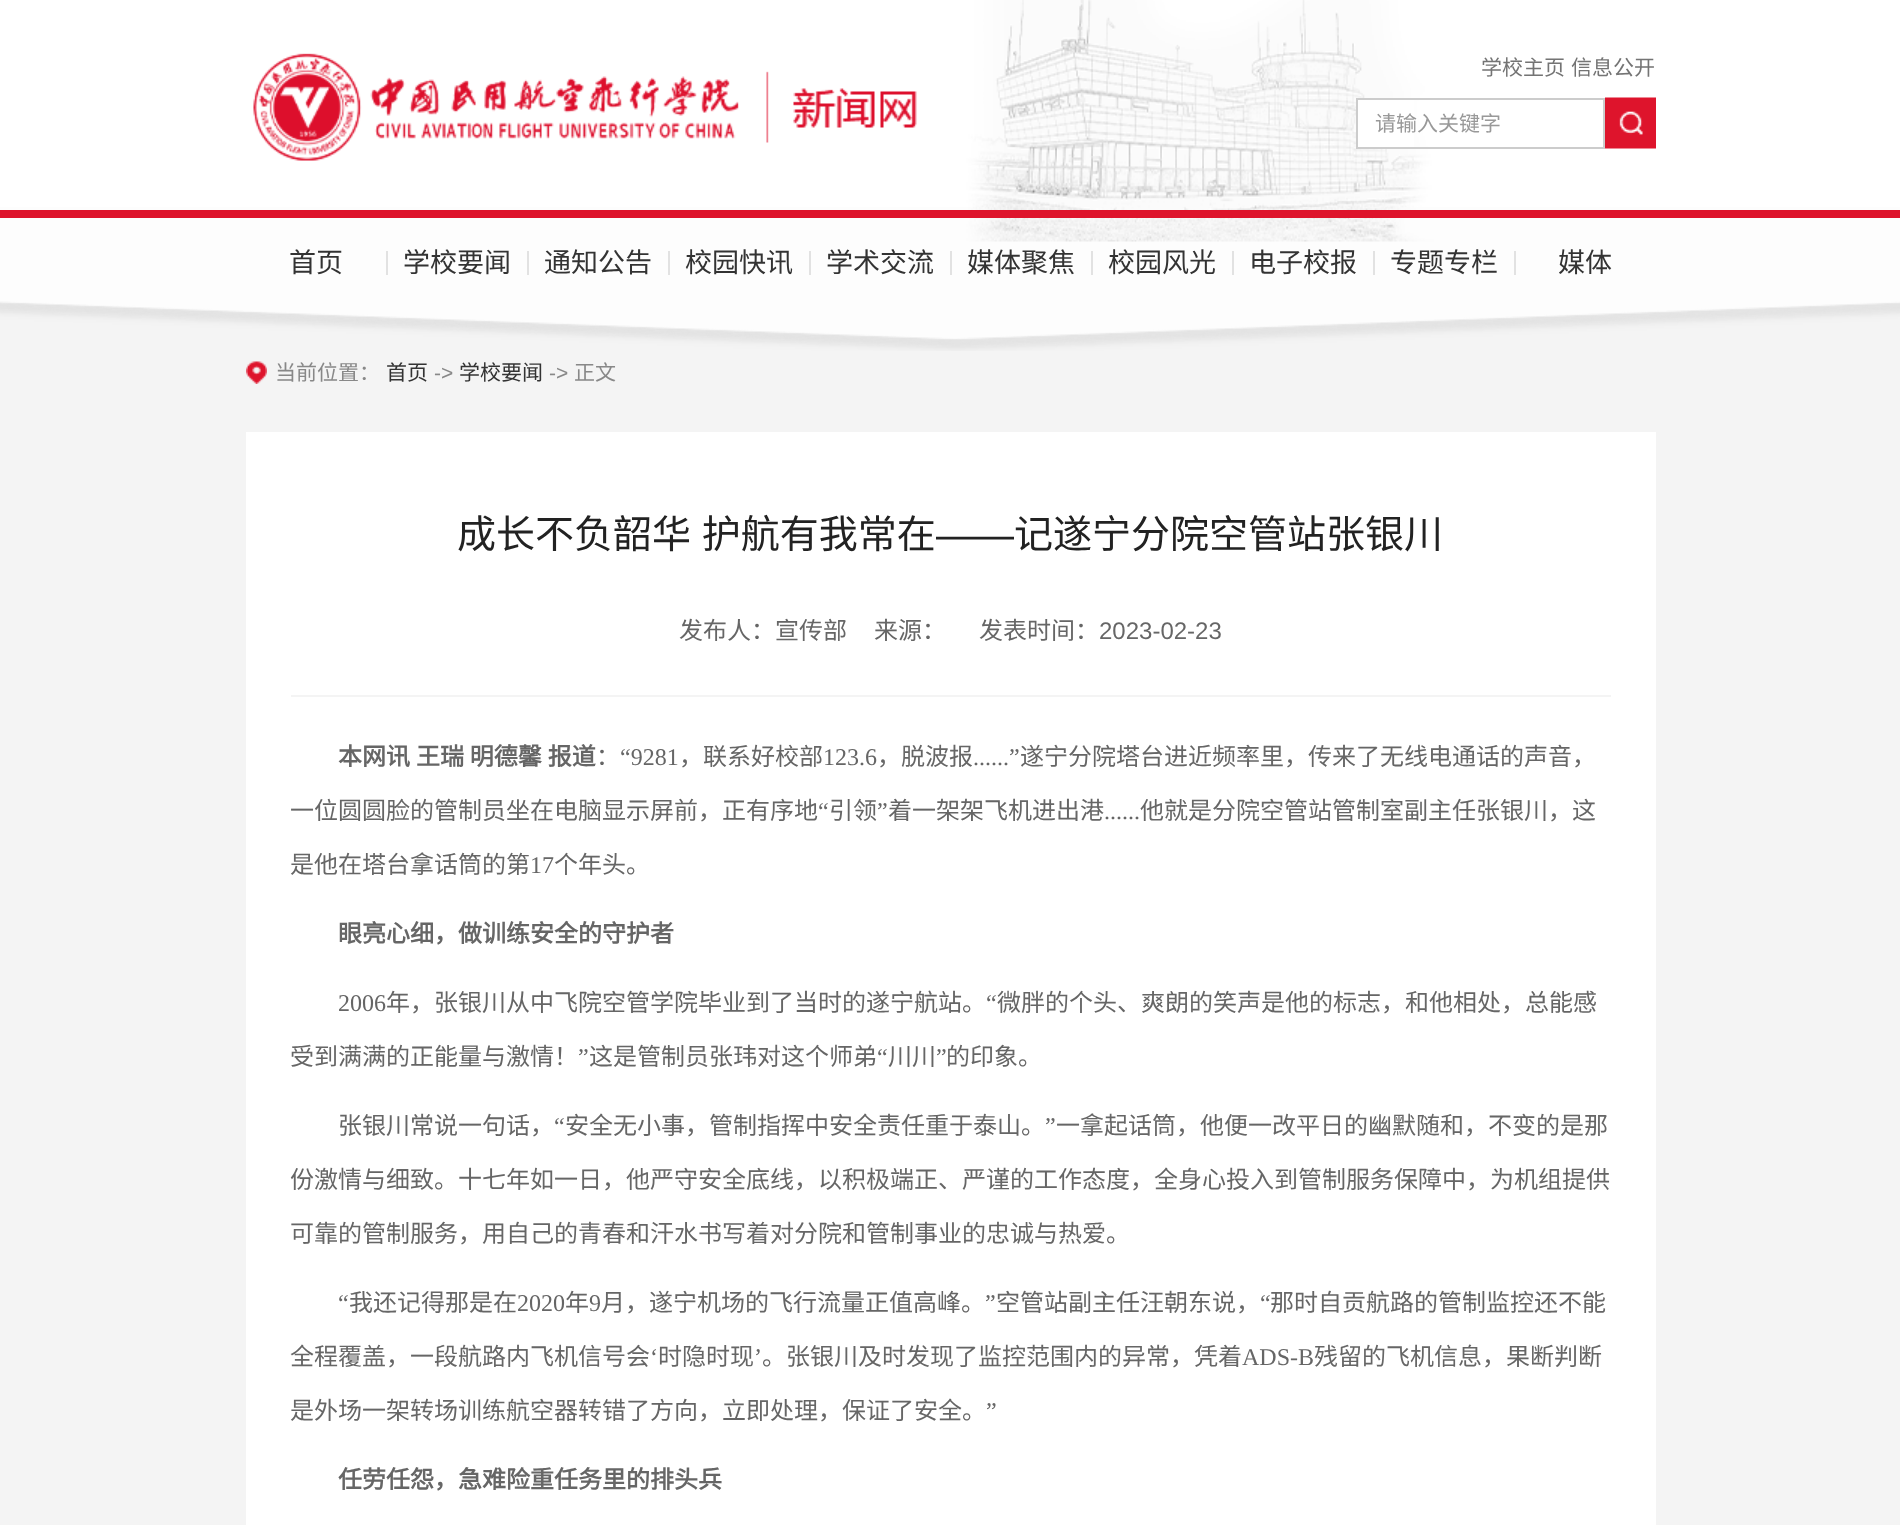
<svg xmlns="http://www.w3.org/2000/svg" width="1900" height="1525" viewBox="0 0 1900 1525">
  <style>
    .t1 { font: 21px Noto Sans CJK SC; fill: #747474; }
    .t2 { font: 21px Noto Sans CJK SC; fill: #999; }
    .t3 { font: 27px Noto Sans CJK SC; fill: #333; }
    .t4 { font: 21px Noto Sans CJK SC; fill: #888; }
    .t5 { font: 21px Noto Sans CJK SC; fill: #333; }
    .t6 { font: 21px Liberation Sans; fill: #888; }
    .t7 { font: 39px Noto Sans CJK SC; fill: #222; }
    .t8 { font: 39px Liberation Sans; fill: #222; }
    .t9 { font: 24px Noto Sans CJK SC; fill: #666; }
    .t10 { font: 24px Liberation Sans; fill: #666; }
    .t11 { font: bold 24px Noto Sans CJK SC; fill: #666; }
    .t12 { font: 24px Liberation Serif; fill: #666; }
  </style>
  <rect width="100%" height="100%" fill="#f4f4f4"/>
  <image x="0" y="0" width="1900" height="351" href="images/1.png"/>
  <image x="253" y="53" width="664" height="108" href="images/2.png"/>
  <text x="1481" y="75" class="t1">学校主页</text>
  <text x="1571" y="75" class="t1">信息公开</text>
  <rect x="1358" y="100" width="56" height="47" fill="#fff"/>
  <rect x="1357" y="99" width="247" height="49" fill="none" stroke="#ccc" stroke-width="2"/>
  <text x="1375" y="131" class="t2">请输入关键字</text>
  <image x="1605" y="97" width="51" height="52" href="images/3.png"/>
  <rect x="0" y="210" width="1900" height="8" fill="#de142c"/>
  <text x="289" y="272" class="t3">首页</text>
  <rect x="386" y="251" width="2" height="24" fill="#e2e2e2"/>
  <text x="403" y="272" class="t3">学校要闻</text>
  <rect x="527" y="251" width="2" height="24" fill="#e2e2e2"/>
  <text x="544" y="272" class="t3">通知公告</text>
  <rect x="668" y="251" width="2" height="24" fill="#e2e2e2"/>
  <text x="685" y="272" class="t3">校园快讯</text>
  <rect x="809" y="251" width="2" height="24" fill="#e2e2e2"/>
  <text x="826" y="272" class="t3">学术交流</text>
  <rect x="950" y="251" width="2" height="24" fill="#e2e2e2"/>
  <text x="967" y="272" class="t3">媒体聚焦</text>
  <rect x="1091" y="251" width="2" height="24" fill="#e2e2e2"/>
  <text x="1108" y="272" class="t3">校园风光</text>
  <rect x="1232" y="251" width="2" height="24" fill="#e2e2e2"/>
  <text x="1249" y="272" class="t3">电子校报</text>
  <rect x="1373" y="251" width="2" height="24" fill="#e2e2e2"/>
  <text x="1390" y="272" class="t3">专题专栏</text>
  <rect x="1514" y="251" width="2" height="24" fill="#e2e2e2"/>
  <text x="1558" y="272" class="t3">媒体</text>
  <image x="246" y="361" width="21" height="23" href="images/4.png"/>
  <text x="275" y="380" class="t4">当前位置：</text>
  <text x="386" y="380" class="t5">首页</text>
  <text x="434" y="380" class="t6">-&gt;</text>
  <text x="459" y="380" class="t5">学校要闻</text>
  <text x="549" y="380" class="t6">-&gt;</text>
  <text x="574" y="380" class="t4">正文</text>
  <rect x="246" y="432" width="1410" height="1093" fill="#fff"/>
  <text x="457" y="548" word-spacing="2" class="t7">成长不负韶华 护航有我常在</text>
  <text x="936" y="548" class="t8">——</text>
  <text x="1014" y="548" class="t7">记遂宁分院空管站张银川</text>
  <rect x="291" y="695" width="1320" height="2" fill="#f4f4f4"/>
  <text x="679" y="639" class="t9">发布人：宣传部</text>
  <text x="874" y="639" class="t9">来源：</text>
  <text x="979" y="639" class="t9">发表时间：</text>
  <text x="1099" y="639" class="t10">2023-02-23</text>
  <text x="338" y="765" word-spacing="0.5" class="t11">本网讯 王瑞 明德馨 报道</text>
  <text x="596" y="765" class="t9">：</text>
  <text x="620" y="765" class="t12">“9281</text>
  <text x="679" y="765" class="t9">，联系好校部</text>
  <text x="823" y="765" class="t12">123.6</text>
  <text x="877" y="765" class="t9">，脱波报</text>
  <text x="973" y="765" class="t12">......”</text>
  <text x="1020" y="765" class="t9">遂宁分院塔台进近频率里，传来了无线电通话的声音，</text>
  <text x="290" y="819" class="t9">一位圆圆脸的管制员坐在电脑显示屏前，正有序地</text>
  <text x="818" y="819" class="t12">“</text>
  <text x="829" y="819" class="t9">引领</text>
  <text x="877" y="819" class="t12">”</text>
  <text x="888" y="819" class="t9">着一架架飞机进出港</text>
  <text x="1140" y="819" class="t9">他就是分院空管站管制室副主任张银川，这</text>
  <text x="1104" y="819" class="t12">......</text>
  <text x="290" y="873" class="t9">是他在塔台拿话筒的第</text>
  <text x="530" y="873" class="t12">17</text>
  <text x="554" y="873" class="t9">个年头。</text>
  <text x="338" y="942" class="t11">眼亮心细，做训练安全的守护者</text>
  <text x="338" y="1011" class="t12">2006</text>
  <text x="386" y="1011" class="t9">年，张银川从中飞院空管学院毕业到了当时的遂宁航站。</text>
  <text x="986" y="1011" class="t12">“</text>
  <text x="997" y="1011" class="t9">微胖的个头、爽朗的笑声是他的标志，和他相处，总能感</text>
  <text x="290" y="1065" class="t9">受到满满的正能量与激情！</text>
  <text x="578" y="1065" class="t12">”</text>
  <text x="589" y="1065" class="t9">这是管制员张玮对这个师弟</text>
  <text x="877" y="1065" class="t12">“</text>
  <text x="888" y="1065" class="t9">川川</text>
  <text x="936" y="1065" class="t12">”</text>
  <text x="946" y="1065" class="t9">的印象。</text>
  <text x="338" y="1134" class="t9">张银川常说一句话，</text>
  <text x="554" y="1134" class="t12">“</text>
  <text x="565" y="1134" class="t9">安全无小事，管制指挥中安全责任重于泰山。</text>
  <text x="1045" y="1134" class="t12">”</text>
  <text x="1056" y="1134" class="t9">一拿起话筒，他便一改平日的幽默随和，不变的是那</text>
  <text x="290" y="1188" class="t9">份激情与细致。十七年如一日，他严守安全底线，以积极端正、严谨的工作态度，全身心投入到管制服务保障中，为机组提供</text>
  <text x="290" y="1242" class="t9">可靠的管制服务，用自己的青春和汗水书写着对分院和管制事业的忠诚与热爱。</text>
  <text x="338" y="1311" class="t12">“</text>
  <text x="349" y="1311" class="t9">我还记得那是在</text>
  <text x="517" y="1311" class="t12">2020</text>
  <text x="565" y="1311" class="t9">年</text>
  <text x="589" y="1311" class="t12">9</text>
  <text x="601" y="1311" class="t9">月，遂宁机场的飞行流量正值高峰。</text>
  <text x="985" y="1311" class="t12">”</text>
  <text x="996" y="1311" class="t9">空管站副主任汪朝东说，</text>
  <text x="1260" y="1311" class="t12">“</text>
  <text x="1270" y="1311" class="t9">那时自贡航路的管制监控还不能</text>
  <text x="290" y="1365" class="t9">全程覆盖，一段航路内飞机信号会</text>
  <text x="650" y="1365" class="t12">‘</text>
  <text x="658" y="1365" class="t9">时隐时现</text>
  <text x="754" y="1365" class="t12">’</text>
  <text x="762" y="1365" class="t9">。张银川及时发现了监控范围内的异常，凭着</text>
  <text x="1242" y="1365" class="t12">ADS-B</text>
  <text x="1314" y="1365" class="t9">残留的飞机信息，果断判断</text>
  <text x="290" y="1419" class="t9">是外场一架转场训练航空器转错了方向，立即处理，保证了安全。</text>
  <text x="986" y="1419" class="t12">”</text>
  <text x="338" y="1488" class="t11">任劳任怨，急难险重任务里的排头兵</text>
</svg>
